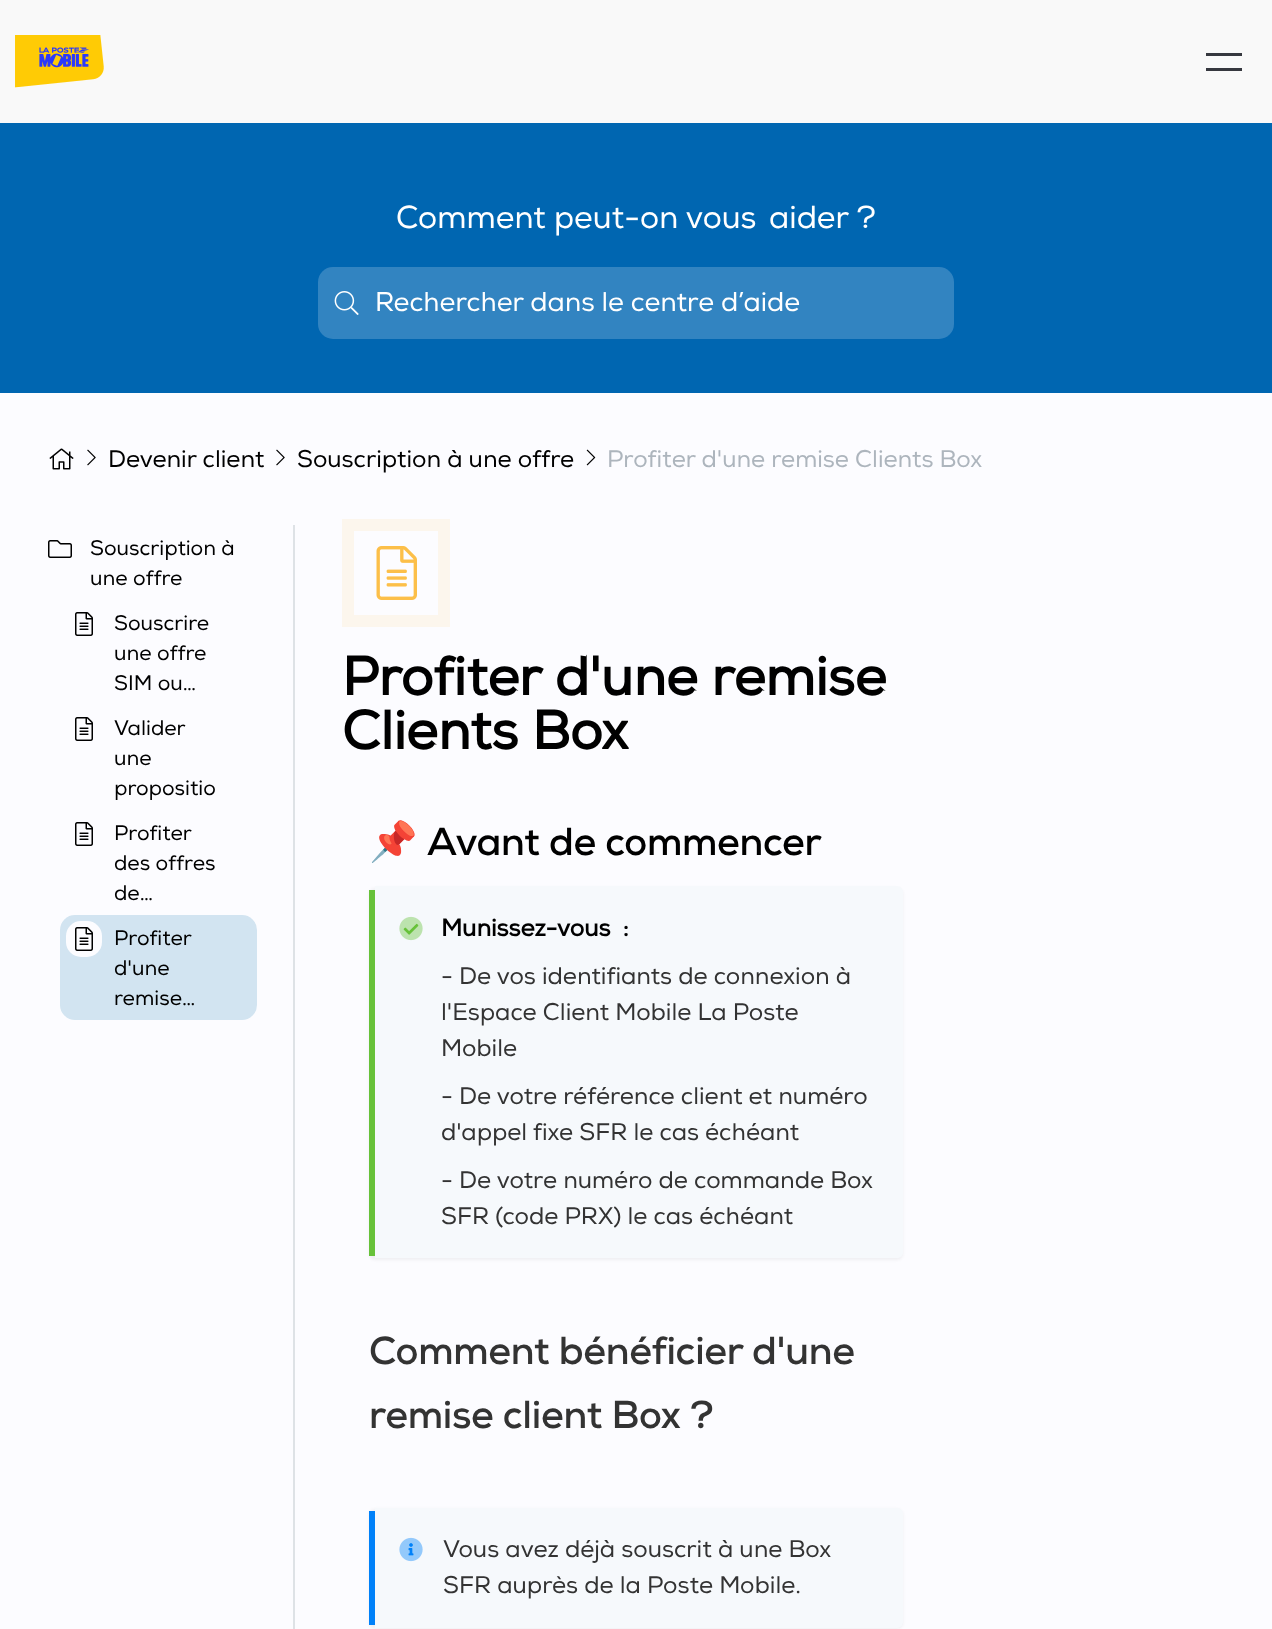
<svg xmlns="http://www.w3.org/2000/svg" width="1272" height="1629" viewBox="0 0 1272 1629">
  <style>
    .t1 { font: 31.75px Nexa; fill: #fff; }
    .t2 { font: 27px Nexa; fill: #fff; }
    .t3 { font: 24px Nexa; fill: #000; }
    .t4 { font: 24px Nexa; fill: #adb5bd; }
    .t5 { font: 21px Nexa; fill: #000; }
    .t6 { font: bold 54px 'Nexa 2'; fill: #000; }
    .t7 { font: 39px Noto Color Emoji; letter-spacing: -0.3px; fill: #000; }
    .t8 { font: bold 39px Nexa; letter-spacing: -0.3px; fill: #000; }
    .t9 { font: bold 24px 'Nexa 2'; fill: #000; }
    .t10 { font: 24px Nexa; fill: #333; }
    .t11 { font: bold 39px Nexa; letter-spacing: -0.3px; fill: #333; }
  </style>
  <rect width="100%" height="100%" fill="#fcfcff"/>
  <rect x="0" y="0" width="1272" height="123" fill="#f9f9f9"/>
  <image x="15" y="35" width="89" height="53" href="images/1.png"/>
  <rect x="1206" y="53" width="36" height="3" fill="#36383f"/>
  <rect x="1206" y="68" width="36" height="3" fill="#36383f"/>
  <rect x="0" y="123" width="1272" height="270" fill="#0066b1"/>
  <text x="396" y="228" class="t1">Comment peut-on vous</text>
  <text x="769" y="228" class="t1">aider ?</text>
  <rect x="318" y="267" width="636" height="72" rx="15" fill="#3284c1"/>
  <image x="334" y="291" width="25" height="24" href="images/2.png"/>
  <text x="375" y="311" class="t2">Rechercher dans le centre d’aide</text>
  <image x="49" y="448" width="25" height="22" href="images/3.png"/>
  <image x="87" y="449" width="9" height="17" href="images/4.png"/>
  <text x="108" y="467" class="t3">Devenir client</text>
  <image x="276" y="449" width="9" height="17" href="images/4.png"/>
  <text x="297" y="467" class="t3">Souscription à une offre</text>
  <image x="586" y="449" width="10" height="17" href="images/5.png"/>
  <text x="607" y="467" class="t4">Profiter d'une remise Clients Box</text>
  <rect x="293" y="525" width="2" height="1104" fill="#dee2e6"/>
  <image x="48" y="540" width="24" height="18" href="images/6.png"/>
  <text x="90" y="555" class="t5">Souscription à</text>
  <text x="90" y="585" class="t5">une offre</text>
  <image x="75" y="612" width="18" height="24" href="images/7.png"/>
  <text x="114" y="630" class="t5">Souscrire</text>
  <text x="114" y="660" class="t5">une offre</text>
  <text x="114" y="690" class="t5">SIM ou…</text>
  <image x="75" y="717" width="18" height="24" href="images/7.png"/>
  <text x="114" y="735" class="t5">Valider</text>
  <text x="114" y="765" class="t5">une</text>
  <text x="114" y="795" class="t5">propositio</text>
  <image x="75" y="822" width="18" height="24" href="images/7.png"/>
  <text x="114" y="840" class="t5">Profiter</text>
  <text x="114" y="870" class="t5">des offres</text>
  <text x="114" y="900" class="t5">de…</text>
  <rect x="60" y="915" width="197" height="105" rx="15" fill="#d2e4f1"/>
  <rect x="66" y="921" width="36" height="36" rx="15" fill="#fcfcff"/>
  <image x="75" y="927" width="18" height="24" href="images/7.png"/>
  <text x="114" y="945" class="t5">Profiter</text>
  <text x="114" y="975" class="t5">d'une</text>
  <text x="114" y="1005" class="t5">remise…</text>
  <rect x="348" y="525" width="96" height="96" fill="none" stroke="#fcf6ed" stroke-width="12"/>
  <image x="376" y="546" width="41" height="54" href="images/8.png"/>
  <text x="342" y="695" class="t6">Profiter d'une remise</text>
  <text x="342" y="749" class="t6">Clients Box</text>
  <text x="369" y="855" class="t7">📌</text>
  <text x="427" y="855" class="t8">Avant de commencer</text>
  <rect x="369" y="888" width="534" height="372" rx="6" fill="#0000000d" filter="blur(1.5px)"/>
  <path d="M375 886H897C900 886 903 889 903 892V1252C903 1256 900 1258 897 1258H375Z" fill="#f6f9fc"/>
  <rect x="369" y="890" width="6" height="366" fill="#67c23a"/>
  <image x="399" y="916" width="24" height="25" href="images/9.png"/>
  <text x="441" y="936" class="t9" xml:space="preserve">Munissez-vous  :</text>
  <text x="441" y="984" class="t10">- De vos identifiants de connexion à</text>
  <text x="441" y="1020" class="t10">l'Espace Client Mobile La Poste</text>
  <text x="441" y="1056" class="t10">Mobile</text>
  <text x="441" y="1104" class="t10">- De votre référence client et numéro</text>
  <text x="441" y="1140" class="t10">d'appel fixe SFR le cas échéant</text>
  <text x="441" y="1188" class="t10">- De votre numéro de commande Box</text>
  <text x="441" y="1224" class="t10">SFR (code PRX) le cas échéant</text>
  <text x="369" y="1364" class="t11">Comment bénéficier d'une</text>
  <text x="369" y="1428" class="t11">remise client Box ?</text>
  <rect x="369" y="1509" width="534" height="120" rx="6" fill="#0000000d" filter="blur(1.5px)"/>
  <path d="M375 1508H897C900 1508 903 1510 903 1514V1622C903 1625 900 1628 897 1628H375Z" fill="#f6f9fc"/>
  <rect x="369" y="1511" width="6" height="114" fill="#0081f9"/>
  <image x="399" y="1537" width="24" height="25" href="images/10.png"/>
  <text x="443" y="1557" class="t10">Vous avez déjà souscrit à une Box</text>
  <text x="443" y="1593" class="t10">SFR auprès de la Poste Mobile.</text>
</svg>
